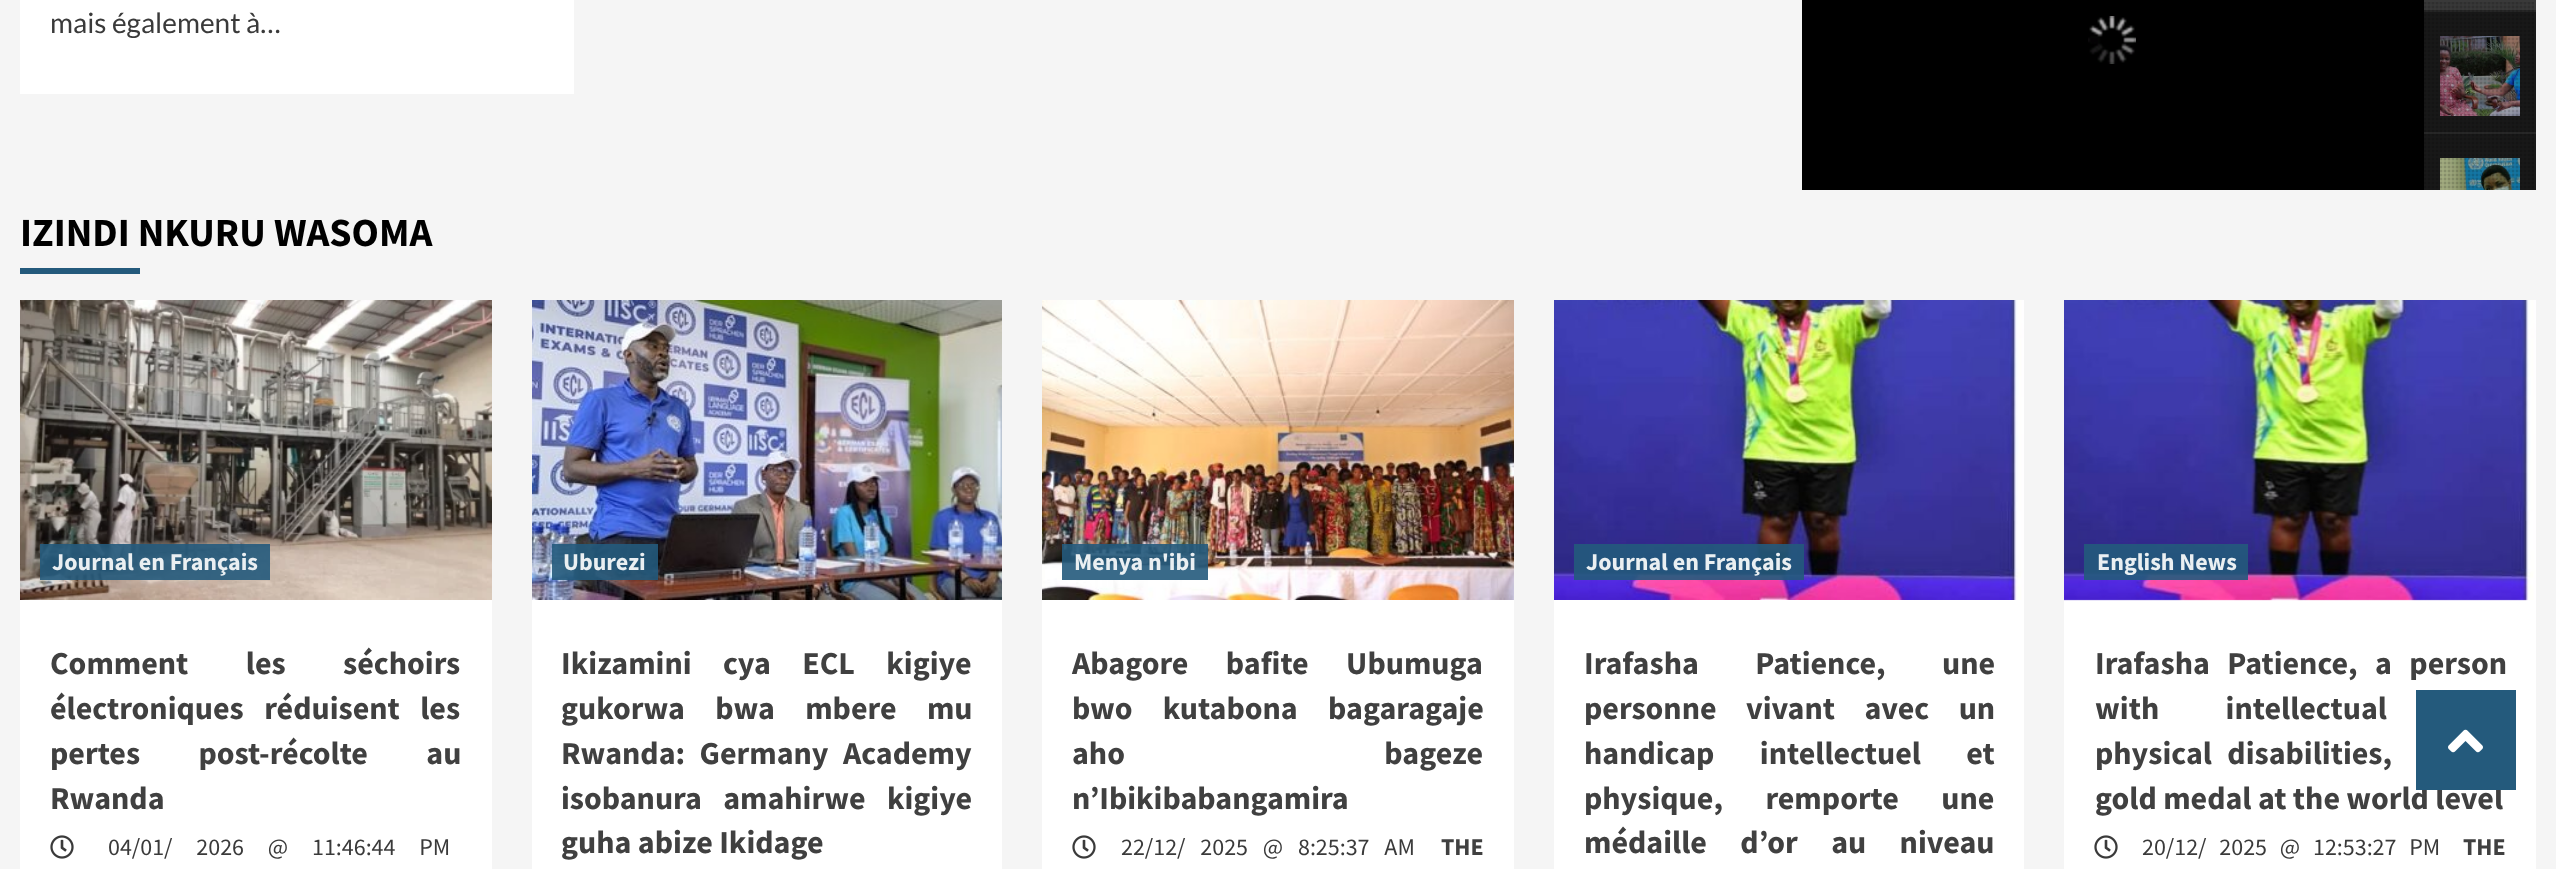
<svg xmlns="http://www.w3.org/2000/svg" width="2556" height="869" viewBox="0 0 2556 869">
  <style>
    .t1 { font: 28px Lato; fill: #3a3a3a; }
    .t2 { font: bold 40px Source Sans Pro; fill: #000; }
    .t3 { font: bold 24px Source Sans Pro; fill: #eaeff2; }
    .t4 { font: bold 32px Source Sans Pro; fill: #404040; }
    .t5 { font: 24px Source Sans Pro; fill: #3a3a3a; }
    .t6 { font: bold 24px Source Sans Pro; fill: #404040; }
  </style>
  <rect width="100%" height="100%" fill="#f5f5f5"/>
  <rect x="20" y="0" width="554" height="94" fill="#fff"/>
  <text x="50" y="33" class="t1">mais également à…</text>
  <rect x="1802" y="0" width="622" height="190" fill="#000"/>
  <image x="2088" y="16" width="48" height="48" href="images/1.png"/>
  <rect x="2424" y="12" width="112" height="178" fill="#191919"/>
  <rect x="2424" y="0" width="112" height="10" fill="#393939"/>
  <rect x="2424" y="10" width="112" height="2" fill="#282828"/>
  <rect x="2424" y="132" width="112" height="2" fill="#282828"/>
  <image x="2440" y="36" width="80" height="80" href="images/2.png"/>
  <image x="2440" y="158" width="80" height="32" href="images/3.png"/>
  <image x="2424" y="2" width="110" height="188" href="images/4.png"/>
  <text x="20" y="246" class="t2">IZINDI NKURU WASOMA</text>
  <rect x="20" y="268" width="120" height="6" fill="#245a7c"/>
  <rect x="20" y="600" width="472" height="269" fill="#fff"/>
  <image x="20" y="300" width="472" height="300" href="images/5.png"/>
  <rect x="40" y="544" width="230" height="36" fill="#245a7ce6"/>
  <text x="52" y="570" class="t3">Journal en Français</text>
  <text x="50" y="674" word-spacing="51" class="t4">Comment les séchoirs</text>
  <text x="50" y="719" word-spacing="14" class="t4">électroniques réduisent les</text>
  <text x="50" y="764" word-spacing="52" class="t4">pertes post-récolte au</text>
  <text x="50" y="809" class="t4">Rwanda</text>
  <image x="50" y="835" width="24" height="24" href="images/6.png"/>
  <text x="108" y="855" word-spacing="19" class="t5">04/01/ 2026 @ 11:46:44 PM</text>
  <rect x="532" y="600" width="470" height="269" fill="#fff"/>
  <image x="532" y="300" width="470" height="300" href="images/7.png"/>
  <rect x="552" y="544" width="106" height="36" fill="#245a7ce6"/>
  <text x="563" y="570" class="t3">Uburezi</text>
  <text x="561" y="674" word-spacing="25" class="t4">Ikizamini cya ECL kigiye</text>
  <text x="561" y="719" word-spacing="24" class="t4">gukorwa bwa mbere mu</text>
  <text x="561" y="764" word-spacing="8" class="t4">Rwanda: Germany Academy</text>
  <text x="561" y="809" word-spacing="15" class="t4">isobanura amahirwe kigiye</text>
  <text x="561" y="853" class="t4">guha abize Ikidage</text>
  <rect x="1042" y="600" width="472" height="269" fill="#fff"/>
  <image x="1042" y="300" width="472" height="300" href="images/8.png"/>
  <rect x="1062" y="544" width="146" height="36" fill="#245a7ce6"/>
  <text x="1074" y="570" class="t3">Menya n'ibi</text>
  <text x="1072" y="674" word-spacing="31" class="t4">Abagore bafite Ubumuga</text>
  <text x="1072" y="719" word-spacing="24" class="t4">bwo kutabona bagaragaje</text>
  <text x="1072" y="764" word-spacing="253" class="t4">aho bageze</text>
  <text x="1072" y="809" class="t4">n’Ibikibabangamira</text>
  <image x="1072" y="835" width="24" height="24" href="images/6.png"/>
  <text x="1121" y="855" word-spacing="10" class="t5">22/12/ 2025 @ 8:25:37 AM</text>
  <text x="1441" y="855" class="t6">THE</text>
  <rect x="1554" y="600" width="470" height="269" fill="#fff"/>
  <image x="1554" y="300" width="470" height="300" href="images/9.png"/>
  <rect x="1574" y="544" width="230" height="36" fill="#245a7ce6"/>
  <text x="1586" y="570" class="t3">Journal en Français</text>
  <text x="1584" y="674" word-spacing="50" class="t4">Irafasha Patience, une</text>
  <text x="1584" y="719" word-spacing="23" class="t4">personne vivant avec un</text>
  <text x="1584" y="764" word-spacing="39" class="t4">handicap intellectuel et</text>
  <text x="1584" y="809" word-spacing="36" class="t4">physique, remporte une</text>
  <text x="1584" y="853" word-spacing="27" class="t4">médaille d’or au niveau</text>
  <rect x="2064" y="300" width="472" height="569" fill="#fff"/>
  <image x="2064" y="300" width="472" height="301" href="images/10.png"/>
  <rect x="2084" y="544" width="164" height="36" fill="#245a7ce6"/>
  <text x="2097" y="570" class="t3">English News</text>
  <text x="2095" y="674" word-spacing="11" class="t4">Irafasha Patience, a person</text>
  <text x="2095" y="719" word-spacing="60" class="t4">with intellectual</text>
  <text x="2095" y="764" word-spacing="9" class="t4">physical disabilities,</text>
  <text x="2095" y="809" class="t4">gold medal at the world level</text>
  <image x="2094" y="835" width="24" height="24" href="images/6.png"/>
  <text x="2142" y="855" word-spacing="8" class="t5">20/12/ 2025 @ 12:53:27 PM</text>
  <text x="2463" y="855" class="t6">THE</text>
  <rect x="2416" y="690" width="100" height="100" fill="#245a7c"/>
  <image x="2448" y="729" width="35" height="24" href="images/11.png"/>
</svg>
